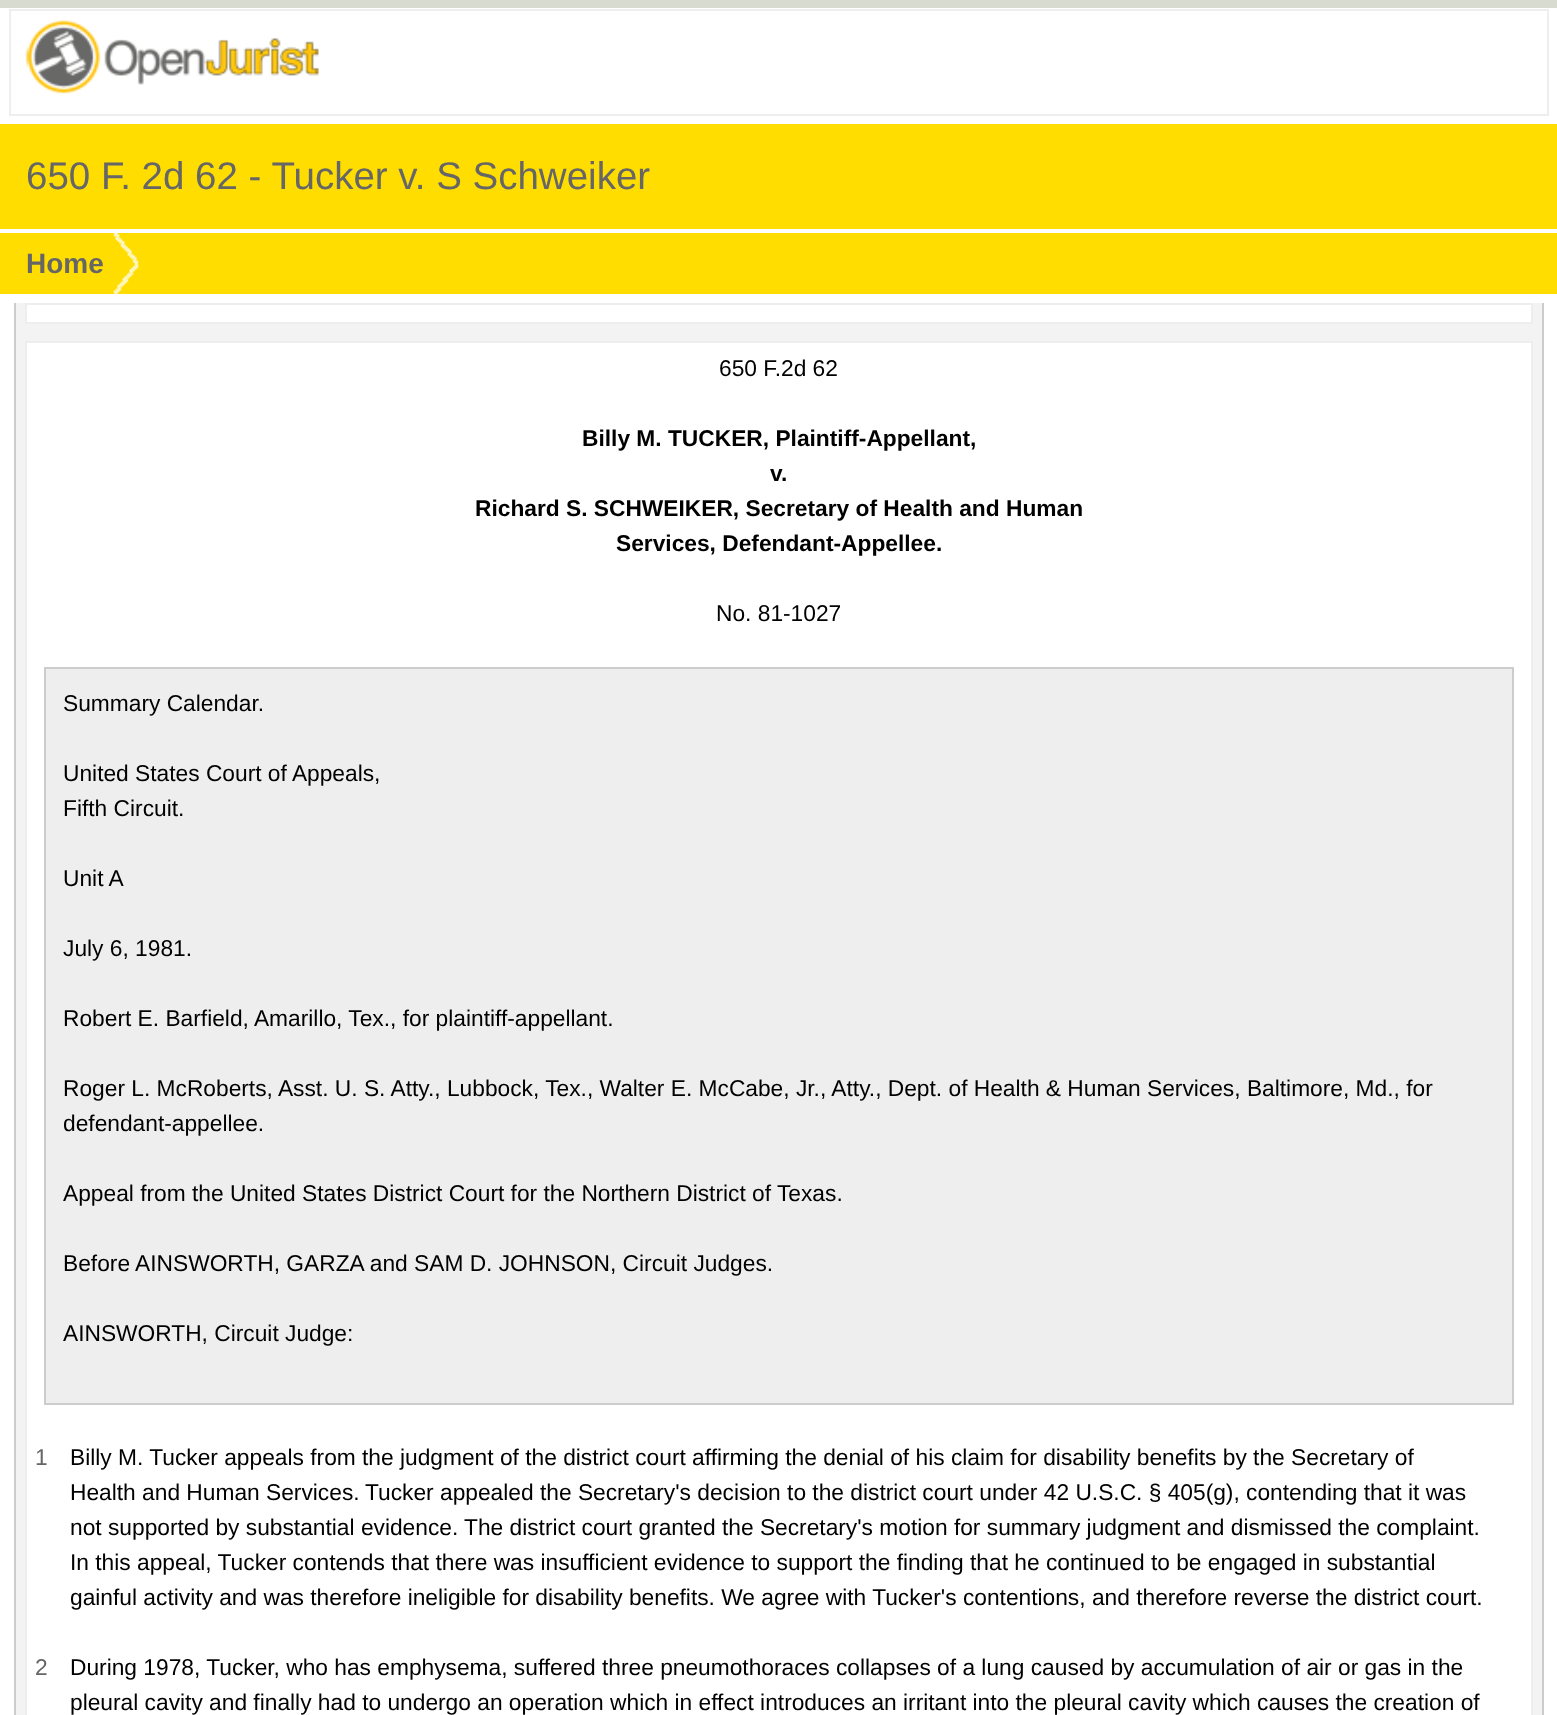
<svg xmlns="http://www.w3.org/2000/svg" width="1557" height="1715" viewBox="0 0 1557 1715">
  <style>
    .t1 { font: 38.5px Liberation Sans; fill: #666; }
    .t2 { font: bold 28px Liberation Sans; fill: #666; }
    .t3 { font: 22.75px Liberation Sans; fill: #000; }
    .t4 { font: bold 22.75px Liberation Sans; fill: #000; }
    .t5 { font: 22.75px Liberation Sans; fill: #666; }
  </style>
  <rect width="100%" height="100%" fill="#d8dcd0"/>
  <rect x="0" y="8" width="1557" height="1707" fill="#fff"/>
  <rect x="10" y="10" width="1538" height="105" fill="none" stroke="#eee" stroke-width="2"/>
  <image x="25" y="20" width="294" height="74" href="images/1.png"/>
  <rect x="0" y="124" width="1557" height="105" fill="#fd0"/>
  <text x="26" y="189" class="t1">650 F. 2d 62 - Tucker v. S Schweiker</text>
  <rect x="0" y="233" width="1557" height="61" fill="#fd0"/>
  <image x="113" y="233" width="26" height="61" href="images/2.png"/>
  <text x="26" y="273" class="t2">Home</text>
  <rect x="16" y="303" width="1526" height="1412" fill="#f3f3f3"/>
  <rect x="1542" y="303" width="2" height="1412" fill="#ccc"/>
  <rect x="14" y="303" width="2" height="1412" fill="#ccc"/>
  <rect x="26" y="304" width="1506" height="19" fill="#fff" stroke="#eee" stroke-width="2"/>
  <rect x="26" y="342" width="1506" height="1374" fill="#fff" stroke="#eee" stroke-width="2"/>
  <text x="719" y="376" class="t3">650 F.2d 62</text>
  <text x="582" y="446" class="t4">Billy M. TUCKER, Plaintiff-Appellant,</text>
  <text x="770" y="481" class="t4">v.</text>
  <text x="475" y="516" class="t4">Richard S. SCHWEIKER, Secretary of Health and Human</text>
  <text x="616" y="551" class="t4">Services, Defendant-Appellee.</text>
  <text x="716" y="621" class="t3">No. 81-1027</text>
  <rect x="45" y="668" width="1468" height="736" fill="#eee" stroke="#ccc" stroke-width="2"/>
  <text x="63" y="711" class="t3">Summary Calendar.</text>
  <text x="63" y="781" class="t3">United States Court of Appeals,</text>
  <text x="63" y="816" class="t3">Fifth Circuit.</text>
  <text x="63" y="886" class="t3">Unit A</text>
  <text x="63" y="956" class="t3">July 6, 1981.</text>
  <text x="63" y="1026" class="t3">Robert E. Barfield, Amarillo, Tex., for plaintiff-appellant.</text>
  <text x="63" y="1096" class="t3">Roger L. McRoberts, Asst. U. S. Atty., Lubbock, Tex., Walter E. McCabe, Jr., Atty., Dept. of Health &amp; Human Services, Baltimore, Md., for</text>
  <text x="63" y="1131" class="t3">defendant-appellee.</text>
  <text x="63" y="1201" class="t3">Appeal from the United States District Court for the Northern District of Texas.</text>
  <text x="63" y="1271" class="t3">Before AINSWORTH, GARZA and SAM D. JOHNSON, Circuit Judges.</text>
  <text x="63" y="1341" class="t3">AINSWORTH, Circuit Judge:</text>
  <text x="35" y="1465" class="t5">1</text>
  <text x="70" y="1465" class="t3">Billy M. Tucker appeals from the judgment of the district court affirming the denial of his claim for disability benefits by the Secretary of</text>
  <text x="70" y="1500" class="t3">Health and Human Services.</text>
  <text x="365" y="1500" class="t3">Tucker appealed the Secretary's decision to the district court under 42 U.S.C. § 405(g), contending that it was</text>
  <text x="70" y="1535" class="t3">not supported by substantial evidence.</text>
  <text x="464" y="1535" class="t3">The district court granted the Secretary's motion for summary judgment and dismissed the complaint.</text>
  <text x="70" y="1570" class="t3">In this appeal, Tucker contends that there was insufficient evidence to support the finding that he continued to be engaged in substantial</text>
  <text x="70" y="1605" class="t3">gainful activity and was therefore ineligible for disability benefits. We agree with Tucker's contentions, and therefore reverse the district court.</text>
  <text x="35" y="1675" class="t5">2</text>
  <text x="70" y="1675" class="t3">During 1978, Tucker, who has emphysema, suffered three pneumothoraces collapses of a lung caused by accumulation of air or gas in the</text>
  <text x="70" y="1710" class="t3">pleural cavity and finally had to undergo an operation which in effect introduces an irritant into the pleural cavity which causes the creation of</text>
</svg>
